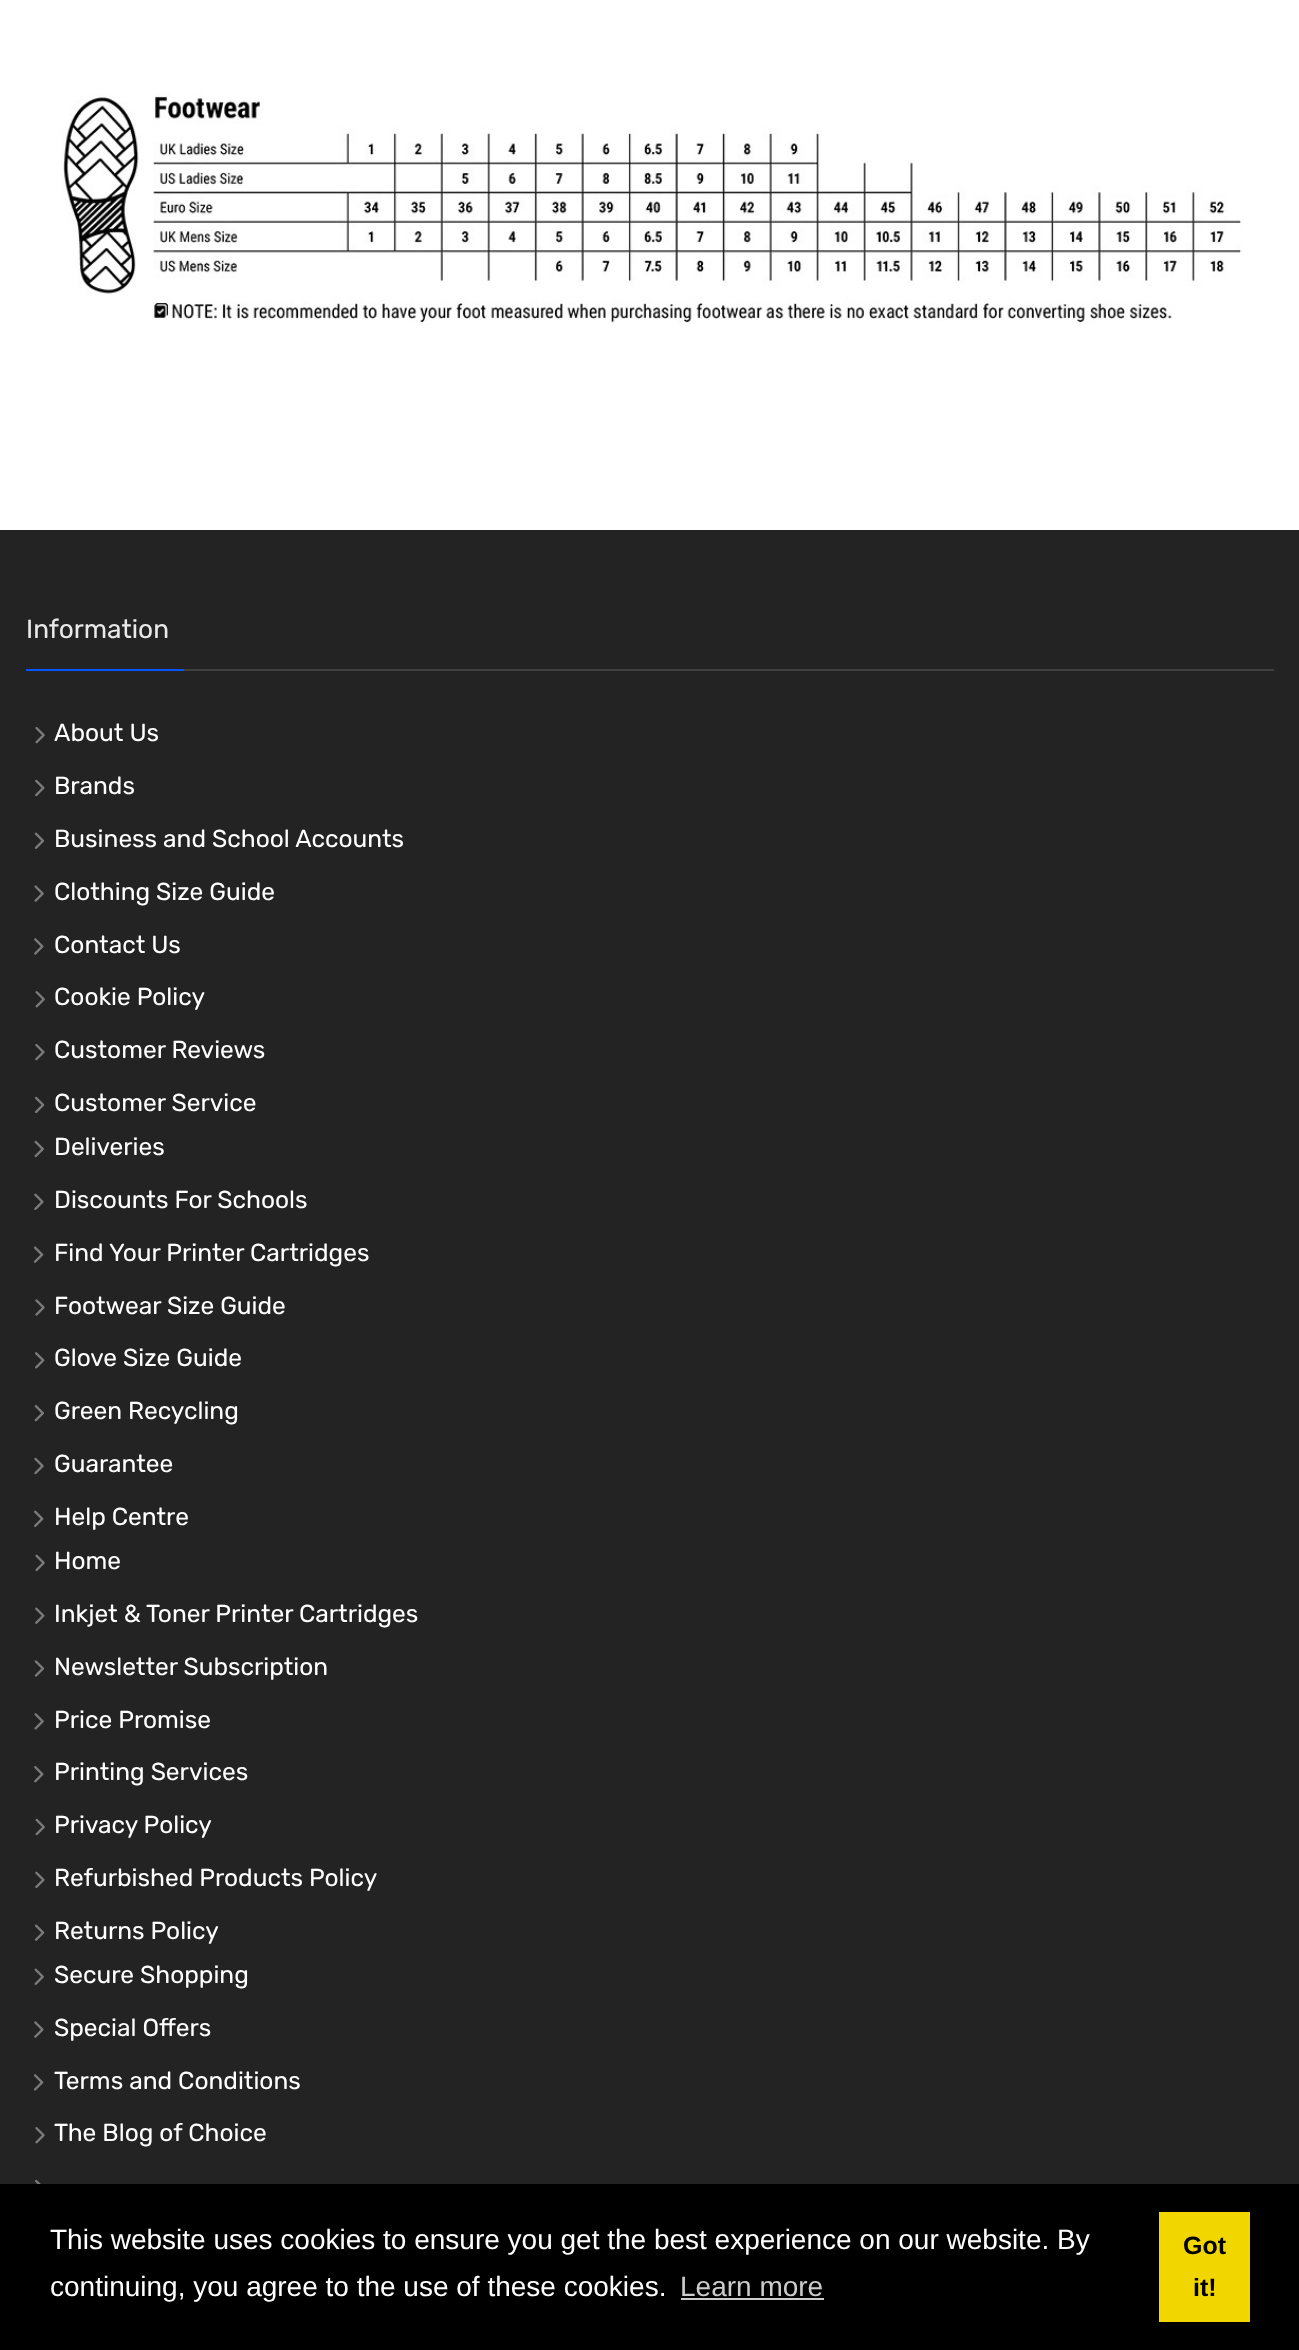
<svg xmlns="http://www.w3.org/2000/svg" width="1299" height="2350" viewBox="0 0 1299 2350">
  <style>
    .t1 { font: 26.25px Rubik; fill: #e9e9e9; }
    .t2 { font: 24.5px Rubik; fill: #fff; }
    .t3 { font: 28px Liberation Sans; fill: #fff; }
    .t4 { font: 28px Liberation Sans; fill: #ccc; }
    .t5 { font: bold 25px Liberation Sans; fill: #000; }
  </style>
  <rect width="100%" height="100%" fill="#fff"/>
  <image x="61" y="93" width="1182" height="232" href="images/1.png"/>
  <rect x="0" y="530" width="1299" height="1654" fill="#232323"/>
  <rect x="184" y="669" width="1090" height="2" fill="#404040"/>
  <text x="26" y="638" class="t1">Information</text>
  <rect x="26" y="669" width="158" height="2" fill="#05f"/>
  <image x="35" y="727" width="10" height="17" href="images/2.png"/>
  <text x="54" y="741" class="t2">About Us</text>
  <image x="35" y="779" width="10" height="18" href="images/3.png"/>
  <text x="54" y="794" class="t2">Brands</text>
  <image x="34" y="832" width="11" height="17" href="images/4.png"/>
  <text x="54" y="847" class="t2">Business and School Accounts</text>
  <image x="34" y="885" width="10" height="17" href="images/5.png"/>
  <text x="54" y="900" class="t2">Clothing Size Guide</text>
  <image x="34" y="938" width="10" height="17" href="images/6.png"/>
  <text x="54" y="953" class="t2">Contact Us</text>
  <image x="35" y="991" width="10" height="17" href="images/7.png"/>
  <text x="54" y="1005" class="t2">Cookie Policy</text>
  <image x="35" y="1043" width="10" height="18" href="images/8.png"/>
  <text x="54" y="1058" class="t2">Customer Reviews</text>
  <image x="34" y="1096" width="11" height="18" href="images/9.png"/>
  <text x="54" y="1111" class="t2">Customer Service</text>
  <image x="34" y="1140" width="10" height="18" href="images/10.png"/>
  <text x="54" y="1155" class="t2">Deliveries</text>
  <image x="34" y="1193" width="10" height="17" href="images/11.png"/>
  <text x="54" y="1208" class="t2">Discounts For Schools</text>
  <image x="33" y="1246" width="11" height="17" href="images/12.png"/>
  <text x="54" y="1261" class="t2">Find Your Printer Cartridges</text>
  <image x="35" y="1299" width="10" height="17" href="images/13.png"/>
  <text x="54" y="1314" class="t2">Footwear Size Guide</text>
  <image x="35" y="1352" width="10" height="17" href="images/14.png"/>
  <text x="54" y="1366" class="t2">Glove Size Guide</text>
  <image x="34" y="1405" width="10" height="17" href="images/15.png"/>
  <text x="54" y="1419" class="t2">Green Recycling</text>
  <image x="34" y="1457" width="10" height="18" href="images/16.png"/>
  <text x="54" y="1472" class="t2">Guarantee</text>
  <image x="34" y="1510" width="10" height="17" href="images/17.png"/>
  <text x="54" y="1525" class="t2">Help Centre</text>
  <image x="35" y="1554" width="10" height="18" href="images/18.png"/>
  <text x="54" y="1569" class="t2">Home</text>
  <image x="35" y="1607" width="10" height="17" href="images/19.png"/>
  <text x="54" y="1622" class="t2">Inkjet &amp; Toner Printer Cartridges</text>
  <image x="34" y="1660" width="11" height="17" href="images/20.png"/>
  <text x="54" y="1675" class="t2">Newsletter Subscription</text>
  <image x="34" y="1713" width="10" height="17" href="images/21.png"/>
  <text x="54" y="1728" class="t2">Price Promise</text>
  <image x="34" y="1766" width="10" height="17" href="images/22.png"/>
  <text x="54" y="1780" class="t2">Printing Services</text>
  <image x="35" y="1818" width="10" height="18" href="images/23.png"/>
  <text x="54" y="1833" class="t2">Privacy Policy</text>
  <image x="35" y="1871" width="10" height="17" href="images/24.png"/>
  <text x="54" y="1886" class="t2">Refurbished Products Policy</text>
  <image x="34" y="1924" width="11" height="17" href="images/25.png"/>
  <text x="54" y="1939" class="t2">Returns Policy</text>
  <image x="34" y="1968" width="10" height="17" href="images/26.png"/>
  <text x="54" y="1983" class="t2">Secure Shopping</text>
  <image x="34" y="2021" width="10" height="17" href="images/27.png"/>
  <text x="54" y="2036" class="t2">Special Offers</text>
  <image x="33" y="2074" width="11" height="17" href="images/28.png"/>
  <text x="54" y="2089" class="t2">Terms and Conditions</text>
  <image x="35" y="2127" width="10" height="17" href="images/29.png"/>
  <text x="54" y="2141" class="t2">The Blog of Choice</text>
  <image x="35" y="2179" width="6" height="5" href="images/30.png"/>
  <rect x="0" y="2184" width="1299" height="166" fill="#000"/>
  <text x="50" y="2249" class="t3">This website uses cookies to ensure you get the best experience on our website. By</text>
  <text x="50" y="2296" class="t3">continuing, you agree to the use of these cookies.</text>
  <text x="680" y="2296" class="t4">Learn more</text>
  <rect x="681" y="2298" width="143" height="2" fill="#ccc"/>
  <rect x="1159" y="2212" width="91" height="110" fill="#f1d600"/>
  <text x="1183" y="2254" class="t5">Got</text>
  <text x="1193" y="2296" class="t5">it!</text>
</svg>
